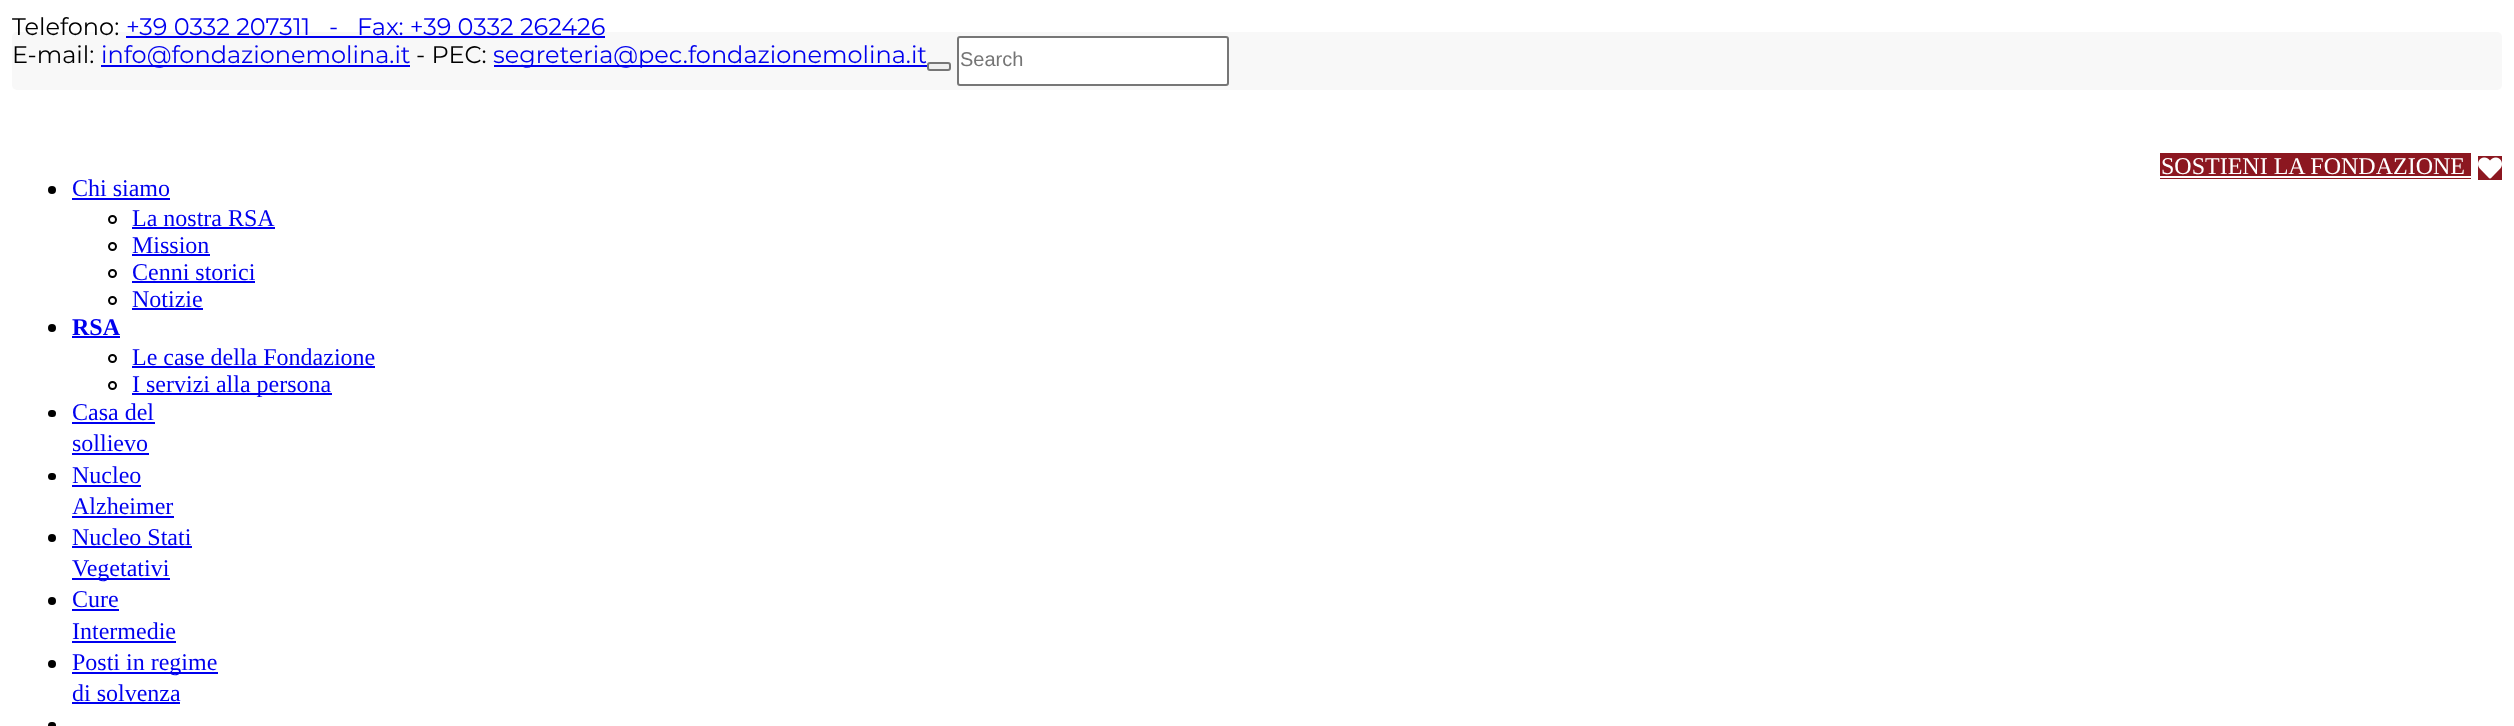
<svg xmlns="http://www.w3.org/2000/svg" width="2514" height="726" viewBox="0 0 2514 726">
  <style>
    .t1 { font: 24px Montserrat; fill: #000; }
    .t2 { font: 24px Montserrat; fill: #00e; }
    .t3 { font: 20px Liberation Sans; fill: #757575; }
    .t4 { font: 24px Liberation Serif; fill: #fff; }
    .t5 { font: 24px Liberation Serif; fill: #00e; }
    .t6 { font: bold 24px Liberation Serif; fill: #00e; }
  </style>
  <rect width="100%" height="100%" fill="#fff"/>
  <rect x="12" y="32" width="2490" height="58" rx="5" fill="#f8f8f8"/>
  <text x="12" y="35" class="t1">Telefono:</text>
  <text x="126" y="35" class="t2">+39 0332 207311</text>
  <rect x="126" y="36" width="479" height="2" fill="#00e"/>
  <text x="329" y="35" class="t2" xml:space="preserve">-   Fax: +39 0332 262426</text>
  <text x="12" y="63" class="t1">E-mail:</text>
  <rect x="101" y="65" width="309" height="2" fill="#00e"/>
  <text x="101" y="63" class="t2">info@fondazionemolina.it</text>
  <text x="416" y="63" class="t1">- PEC:</text>
  <rect x="494" y="65" width="433" height="2" fill="#00e"/>
  <text x="493" y="63" class="t2">segreteria@pec.fondazionemolina.it</text>
  <rect x="928" y="63" width="22" height="7" rx="2" fill="#efefef" stroke="#767676" stroke-width="2"/>
  <rect x="958" y="37" width="270" height="48" rx="2" fill="#fff" stroke="#767676" stroke-width="2"/>
  <text x="960" y="66" class="t3">Search</text>
  <rect x="2160" y="153" width="311" height="26" fill="#8c1720"/>
  <text x="2161" y="174" class="t4">SOSTIENI LA FONDAZIONE</text>
  <rect x="2478" y="156" width="24" height="24" fill="#8c1720"/>
  <rect x="2160" y="176" width="311" height="2" fill="#fff"/>
  <image x="2478" y="157" width="24" height="22" href="images/1.png"/>
  <circle cx="52" cy="190" r="4" fill="#000"/>
  <text x="72" y="196" class="t5">Chi siamo</text>
  <rect x="72" y="198" width="98" height="2" fill="#00e"/>
  <circle cx="112.5" cy="219.5" r="3.5" fill="none" stroke="#000" stroke-width="2"/>
  <text x="132" y="226" class="t5">La nostra RSA</text>
  <rect x="132" y="227" width="143" height="2" fill="#00e"/>
  <circle cx="112.5" cy="246.5" r="3.5" fill="none" stroke="#000" stroke-width="2"/>
  <text x="132" y="253" class="t5">Mission</text>
  <rect x="132" y="254" width="78" height="2" fill="#00e"/>
  <circle cx="112.5" cy="273.5" r="3.5" fill="none" stroke="#000" stroke-width="2"/>
  <text x="132" y="280" class="t5">Cenni storici</text>
  <rect x="132" y="281" width="123" height="2" fill="#00e"/>
  <circle cx="112.5" cy="300.5" r="3.5" fill="none" stroke="#000" stroke-width="2"/>
  <text x="132" y="307" class="t5">Notizie</text>
  <rect x="132" y="308" width="71" height="2" fill="#00e"/>
  <circle cx="52" cy="328" r="4" fill="#000"/>
  <text x="72" y="335" class="t6">RSA</text>
  <rect x="72" y="336" width="48" height="2" fill="#00e"/>
  <circle cx="112.5" cy="358.5" r="3.5" fill="none" stroke="#000" stroke-width="2"/>
  <text x="132" y="365" class="t5">Le case della Fondazione</text>
  <rect x="132" y="366" width="243" height="2" fill="#00e"/>
  <circle cx="112.5" cy="385.5" r="3.5" fill="none" stroke="#000" stroke-width="2"/>
  <rect x="132" y="393" width="200" height="2" fill="#00e"/>
  <text x="132" y="392" class="t5">I servizi alla persona</text>
  <rect x="48" y="410" width="8" height="7" rx="3.5" fill="#000"/>
  <text x="72" y="420" class="t5">Casa del</text>
  <rect x="72" y="422" width="83" height="2" fill="#00e"/>
  <text x="72" y="451" class="t5">sollievo</text>
  <rect x="72" y="453" width="77" height="2" fill="#00e"/>
  <rect x="48" y="473" width="8" height="7" rx="3.5" fill="#000"/>
  <text x="72" y="483" class="t5">Nucleo</text>
  <rect x="72" y="485" width="69" height="2" fill="#00e"/>
  <text x="72" y="514" class="t5">Alzheimer</text>
  <rect x="72" y="516" width="102" height="2" fill="#00e"/>
  <circle cx="52" cy="538" r="4" fill="#000"/>
  <text x="72" y="545" class="t5">Nucleo Stati</text>
  <rect x="72" y="546" width="120" height="2" fill="#00e"/>
  <rect x="72" y="578" width="98" height="2" fill="#00e"/>
  <text x="72" y="576" class="t5">Vegetativi</text>
  <circle cx="52" cy="601" r="4" fill="#000"/>
  <text x="72" y="607" class="t5">Cure</text>
  <rect x="72" y="609" width="47" height="2" fill="#00e"/>
  <text x="72" y="639" class="t5">Intermedie</text>
  <rect x="72" y="641" width="104" height="2" fill="#00e"/>
  <circle cx="52" cy="664" r="4" fill="#000"/>
  <rect x="72" y="672" width="146" height="2" fill="#00e"/>
  <text x="72" y="670" class="t5">Posti in regime</text>
  <text x="72" y="701" class="t5">di solvenza</text>
  <rect x="72" y="702" width="108" height="2" fill="#00e"/>
  <rect x="48" y="722" width="8" height="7" rx="3.5" fill="#000"/>
</svg>
